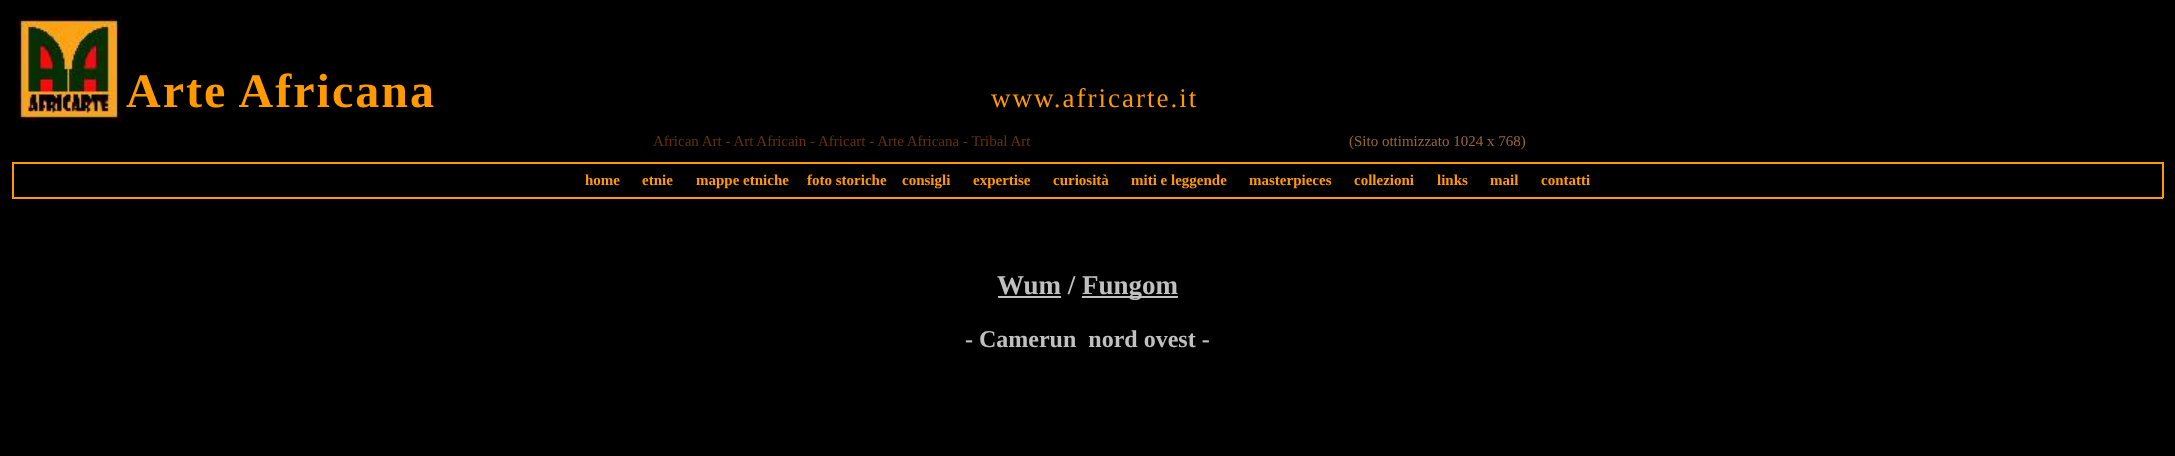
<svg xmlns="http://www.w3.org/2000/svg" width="2175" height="456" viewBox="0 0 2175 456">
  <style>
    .t1 { font: bold 48px Liberation Serif; letter-spacing: 2px; fill: #f90; }
    .t2 { font: 27px Liberation Serif; letter-spacing: 2px; fill: #f90; }
    .t3 { font: 15px Liberation Serif; fill: #630; }
    .t4 { font: 15px Liberation Serif; fill: #963; }
    .t5 { font: bold 15px Liberation Serif; fill: #f90; }
    .t6 { font: bold 27px Liberation Serif; fill: #c0c0c0; }
    .t7 { font: bold 24px Liberation Serif; fill: #c0c0c0; }
  </style>
  <rect width="100%" height="100%" fill="#000"/>
  <image x="16" y="16" width="106" height="106" href="images/1.png"/>
  <text x="126" y="107" class="t1">Arte Africana</text>
  <text x="991" y="107" class="t2">www.africarte.it</text>
  <text x="653" y="146" class="t3">African Art - Art Africain -</text>
  <text x="818" y="146" class="t3">Africart - Arte Africana - Tribal Art</text>
  <text x="1349" y="146" class="t4">(Sito ottimizzato 1024 x 768)</text>
  <rect x="12" y="162" width="2151" height="2" fill="#f90"/>
  <rect x="2162" y="162" width="2" height="36" fill="#f90"/>
  <rect x="12" y="197" width="2151" height="2" fill="#f90"/>
  <rect x="12" y="162" width="2" height="36" fill="#f90"/>
  <text x="585" y="185" class="t5">home</text>
  <text x="642" y="185" class="t5">etnie</text>
  <text x="696" y="185" class="t5">mappe etniche</text>
  <text x="807" y="185" class="t5">foto storiche</text>
  <text x="902" y="185" class="t5">consigli</text>
  <text x="973" y="185" class="t5">expertise</text>
  <text x="1053" y="185" class="t5">curiosità</text>
  <text x="1131" y="185" class="t5">miti e leggende</text>
  <text x="1249" y="185" class="t5">masterpieces</text>
  <text x="1354" y="185" class="t5">collezioni</text>
  <text x="1437" y="185" class="t5">links</text>
  <text x="1490" y="185" class="t5">mail</text>
  <text x="1541" y="185" class="t5">contatti</text>
  <text x="997" y="294" class="t6">Wum /</text>
  <rect x="998" y="296" width="63" height="2" fill="#c0c0c0"/>
  <rect x="1082" y="296" width="96" height="2" fill="#c0c0c0"/>
  <text x="1082" y="294" class="t6">Fungom</text>
  <text x="965" y="347" class="t7" xml:space="preserve">- Camerun  nord ovest -</text>
</svg>
